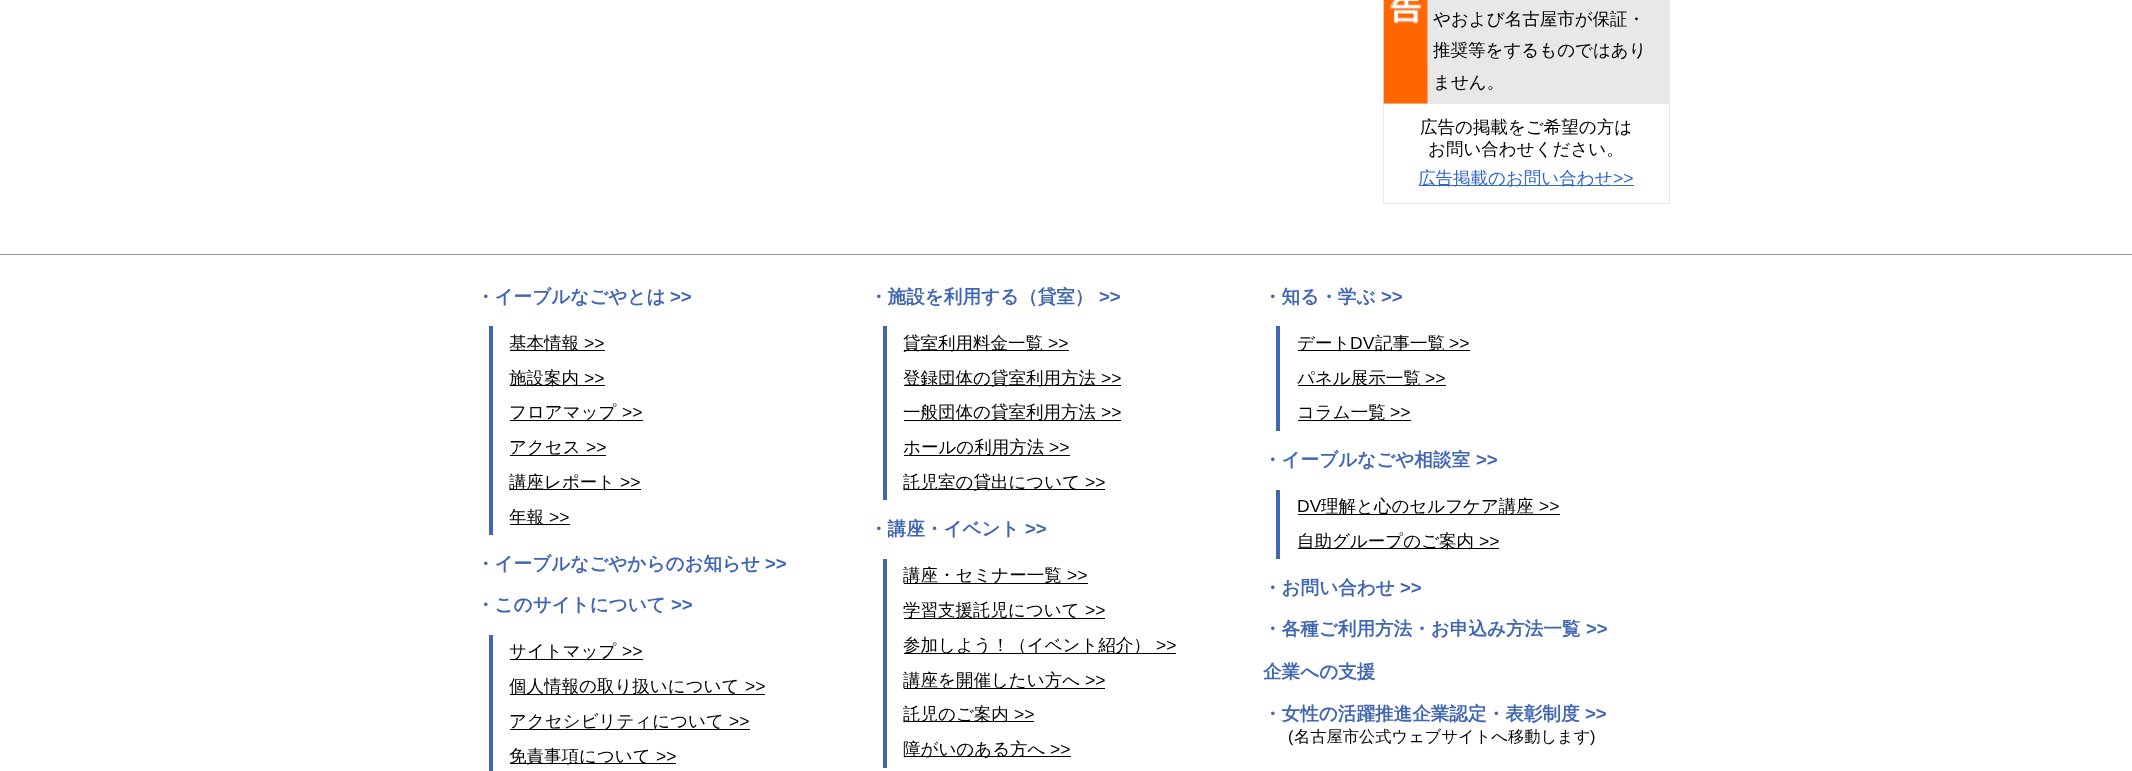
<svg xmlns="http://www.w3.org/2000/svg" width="2132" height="771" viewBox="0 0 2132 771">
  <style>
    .t1 { font: 500 17.5px WenQuanYi Zen Hei; fill: #000; }
    .t2 { font: 500 17.5px WenQuanYi Zen Hei; fill: #36c; }
    .t3 { font: 17.5px Liberation Sans; fill: #36c; }
    .t4 { font: bold 18.6px WenQuanYi Zen Hei; fill: #4267b2; }
    .t5 { font: bold 18.6px Liberation Sans; fill: #4267b2; }
    .t6 { font: 17.5px Liberation Sans; fill: #000; }
    .t7 { font: 16.25px Liberation Sans; fill: #000; }
    .t8 { font: 500 16.25px WenQuanYi Zen Hei; fill: #000; }
  </style>
  <rect width="100%" height="100%" fill="#fff"/>
  <rect x="1383.5" y="-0.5" width="286" height="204" fill="none" stroke="#e8e8e8"/>
  <rect x="1384" y="0" width="285" height="104" fill="#e8e8e8"/>
  <image x="1383" y="0" width="45" height="104" href="images/1.png"/>
  <text x="1433" y="25" class="t1">やおよび名古屋市が保証・</text>
  <text x="1433" y="56" class="t1">推奨等をするものではあり</text>
  <text x="1433" y="88" class="t1">ません。</text>
  <text x="1420" y="133" class="t1">広告の掲載をご希望の方は</text>
  <text x="1428" y="155" class="t1">お問い合わせください。</text>
  <rect x="1419" y="185" width="215" height="1" fill="#36c"/>
  <text x="1418" y="184" class="t2">広告掲載のお問い合わせ</text>
  <text x="1613" y="184" class="t3">&gt;&gt;</text>
  <rect x="0" y="254" width="2132" height="1" fill="#939393"/>
  <text x="476" y="303" class="t4">・イーブルなごやとは</text>
  <text x="670" y="303" class="t5">&gt;&gt;</text>
  <rect x="489" y="326" width="4" height="209" fill="#4267b2"/>
  <rect x="510" y="350" width="95" height="1" fill="#000"/>
  <text x="509" y="349" class="t1">基本情報</text>
  <text x="584" y="349" class="t6">&gt;&gt;</text>
  <rect x="510" y="385" width="95" height="1" fill="#000"/>
  <text x="509" y="384" class="t1">施設案内</text>
  <text x="584" y="384" class="t6">&gt;&gt;</text>
  <rect x="510" y="420" width="133" height="1" fill="#000"/>
  <text x="509" y="418" class="t1">フロアマップ</text>
  <text x="622" y="418" class="t6">&gt;&gt;</text>
  <rect x="510" y="455" width="96" height="1" fill="#000"/>
  <text x="509" y="453" class="t1">アクセス</text>
  <text x="586" y="453" class="t6">&gt;&gt;</text>
  <rect x="510" y="489" width="131" height="1" fill="#000"/>
  <text x="509" y="488" class="t1">講座レポート</text>
  <text x="620" y="488" class="t6">&gt;&gt;</text>
  <rect x="510" y="524" width="60" height="1" fill="#000"/>
  <text x="509" y="523" class="t1">年報</text>
  <text x="549" y="523" class="t6">&gt;&gt;</text>
  <text x="476" y="570" class="t4">・イーブルなごやからのお知らせ</text>
  <text x="765" y="570" class="t5">&gt;&gt;</text>
  <text x="476" y="611" class="t4">・このサイトについて</text>
  <text x="671" y="611" class="t5">&gt;&gt;</text>
  <rect x="489" y="635" width="4" height="136" fill="#4267b2"/>
  <rect x="510" y="659" width="133" height="1" fill="#000"/>
  <text x="509" y="657" class="t1">サイトマップ</text>
  <text x="622" y="657" class="t6">&gt;&gt;</text>
  <rect x="510" y="694" width="255" height="1" fill="#000"/>
  <text x="509" y="692" class="t1">個人情報の取り扱いについて</text>
  <text x="745" y="692" class="t6">&gt;&gt;</text>
  <rect x="510" y="729" width="240" height="1" fill="#000"/>
  <text x="509" y="727" class="t1">アクセシビリティについて</text>
  <text x="729" y="727" class="t6">&gt;&gt;</text>
  <rect x="510" y="763" width="166" height="1" fill="#000"/>
  <text x="509" y="762" class="t1">免責事項について</text>
  <text x="656" y="762" class="t6">&gt;&gt;</text>
  <text x="869" y="303" class="t4">・施設を利用する（貸室）</text>
  <text x="1099" y="303" class="t5">&gt;&gt;</text>
  <rect x="883" y="326" width="4" height="174" fill="#4267b2"/>
  <rect x="904" y="350" width="165" height="1" fill="#000"/>
  <text x="903" y="349" class="t1">貸室利用料金一覧</text>
  <text x="1048" y="349" class="t6">&gt;&gt;</text>
  <rect x="904" y="385" width="217" height="1" fill="#000"/>
  <text x="903" y="384" class="t1">登録団体の貸室利用方法</text>
  <text x="1101" y="384" class="t6">&gt;&gt;</text>
  <rect x="904" y="420" width="217" height="1" fill="#000"/>
  <text x="903" y="418" class="t1">一般団体の貸室利用方法</text>
  <text x="1101" y="418" class="t6">&gt;&gt;</text>
  <rect x="904" y="455" width="166" height="1" fill="#000"/>
  <text x="903" y="453" class="t1">ホールの利用方法</text>
  <text x="1049" y="453" class="t6">&gt;&gt;</text>
  <rect x="904" y="489" width="201" height="1" fill="#000"/>
  <text x="903" y="488" class="t1">託児室の貸出について</text>
  <text x="1085" y="488" class="t6">&gt;&gt;</text>
  <text x="869" y="535" class="t4">・講座・イベント</text>
  <text x="1025" y="535" class="t5">&gt;&gt;</text>
  <rect x="883" y="559" width="4" height="209" fill="#4267b2"/>
  <rect x="904" y="583" width="184" height="1" fill="#000"/>
  <text x="903" y="581" class="t1">講座・セミナー一覧</text>
  <text x="1067" y="581" class="t6">&gt;&gt;</text>
  <rect x="904" y="618" width="201" height="1" fill="#000"/>
  <text x="903" y="616" class="t1">学習支援託児について</text>
  <text x="1085" y="616" class="t6">&gt;&gt;</text>
  <rect x="904" y="653" width="272" height="1" fill="#000"/>
  <text x="903" y="651" class="t1">参加しよう！（イベント紹介）</text>
  <text x="1156" y="651" class="t6">&gt;&gt;</text>
  <rect x="904" y="688" width="201" height="1" fill="#000"/>
  <text x="903" y="686" class="t1">講座を開催したい方へ</text>
  <text x="1085" y="686" class="t6">&gt;&gt;</text>
  <rect x="904" y="721" width="130" height="1" fill="#000"/>
  <text x="903" y="720" class="t1">託児のご案内</text>
  <text x="1014" y="720" class="t6">&gt;&gt;</text>
  <rect x="904" y="756" width="167" height="1" fill="#000"/>
  <text x="903" y="755" class="t1">障がいのある方へ</text>
  <text x="1050" y="755" class="t6">&gt;&gt;</text>
  <text x="1263" y="303" class="t4">・知る・学ぶ</text>
  <text x="1381" y="303" class="t5">&gt;&gt;</text>
  <rect x="1276" y="326" width="4" height="105" fill="#4267b2"/>
  <rect x="1298" y="350" width="172" height="1" fill="#000"/>
  <text x="1297" y="349" class="t1">デート</text>
  <text x="1350" y="349" class="t6">DV</text>
  <text x="1375" y="349" class="t1">記事一覧</text>
  <text x="1449" y="349" class="t6">&gt;&gt;</text>
  <rect x="1298" y="385" width="148" height="1" fill="#000"/>
  <text x="1297" y="384" class="t1">パネル展示一覧</text>
  <text x="1425" y="384" class="t6">&gt;&gt;</text>
  <rect x="1298" y="420" width="113" height="1" fill="#000"/>
  <text x="1297" y="418" class="t1">コラム一覧</text>
  <text x="1390" y="418" class="t6">&gt;&gt;</text>
  <text x="1263" y="466" class="t4">・イーブルなごや相談室</text>
  <text x="1476" y="466" class="t5">&gt;&gt;</text>
  <rect x="1276" y="490" width="4" height="69" fill="#4267b2"/>
  <text x="1297" y="512" class="t6">DV</text>
  <rect x="1298" y="514" width="262" height="1" fill="#000"/>
  <text x="1321" y="512" class="t1">理解と心のセルフケア講座</text>
  <text x="1539" y="512" class="t6">&gt;&gt;</text>
  <rect x="1298" y="548" width="201" height="1" fill="#000"/>
  <text x="1297" y="547" class="t1">自助グループのご案内</text>
  <text x="1479" y="547" class="t6">&gt;&gt;</text>
  <text x="1263" y="594" class="t4">・お問い合わせ</text>
  <text x="1400" y="594" class="t5">&gt;&gt;</text>
  <text x="1263" y="635" class="t4">・各種ご利用方法・お申込み方法一覧</text>
  <text x="1586" y="635" class="t5">&gt;&gt;</text>
  <text x="1263" y="678" class="t4">企業への支援</text>
  <text x="1263" y="720" class="t4">・女性の活躍推進企業認定・表彰制度</text>
  <text x="1585" y="720" class="t5">&gt;&gt;</text>
  <text x="1288" y="742" class="t7">(</text>
  <text x="1294" y="742" class="t8">名古屋市公式ウェブサイトへ移動します</text>
  <text x="1590" y="742" class="t7">)</text>
</svg>
